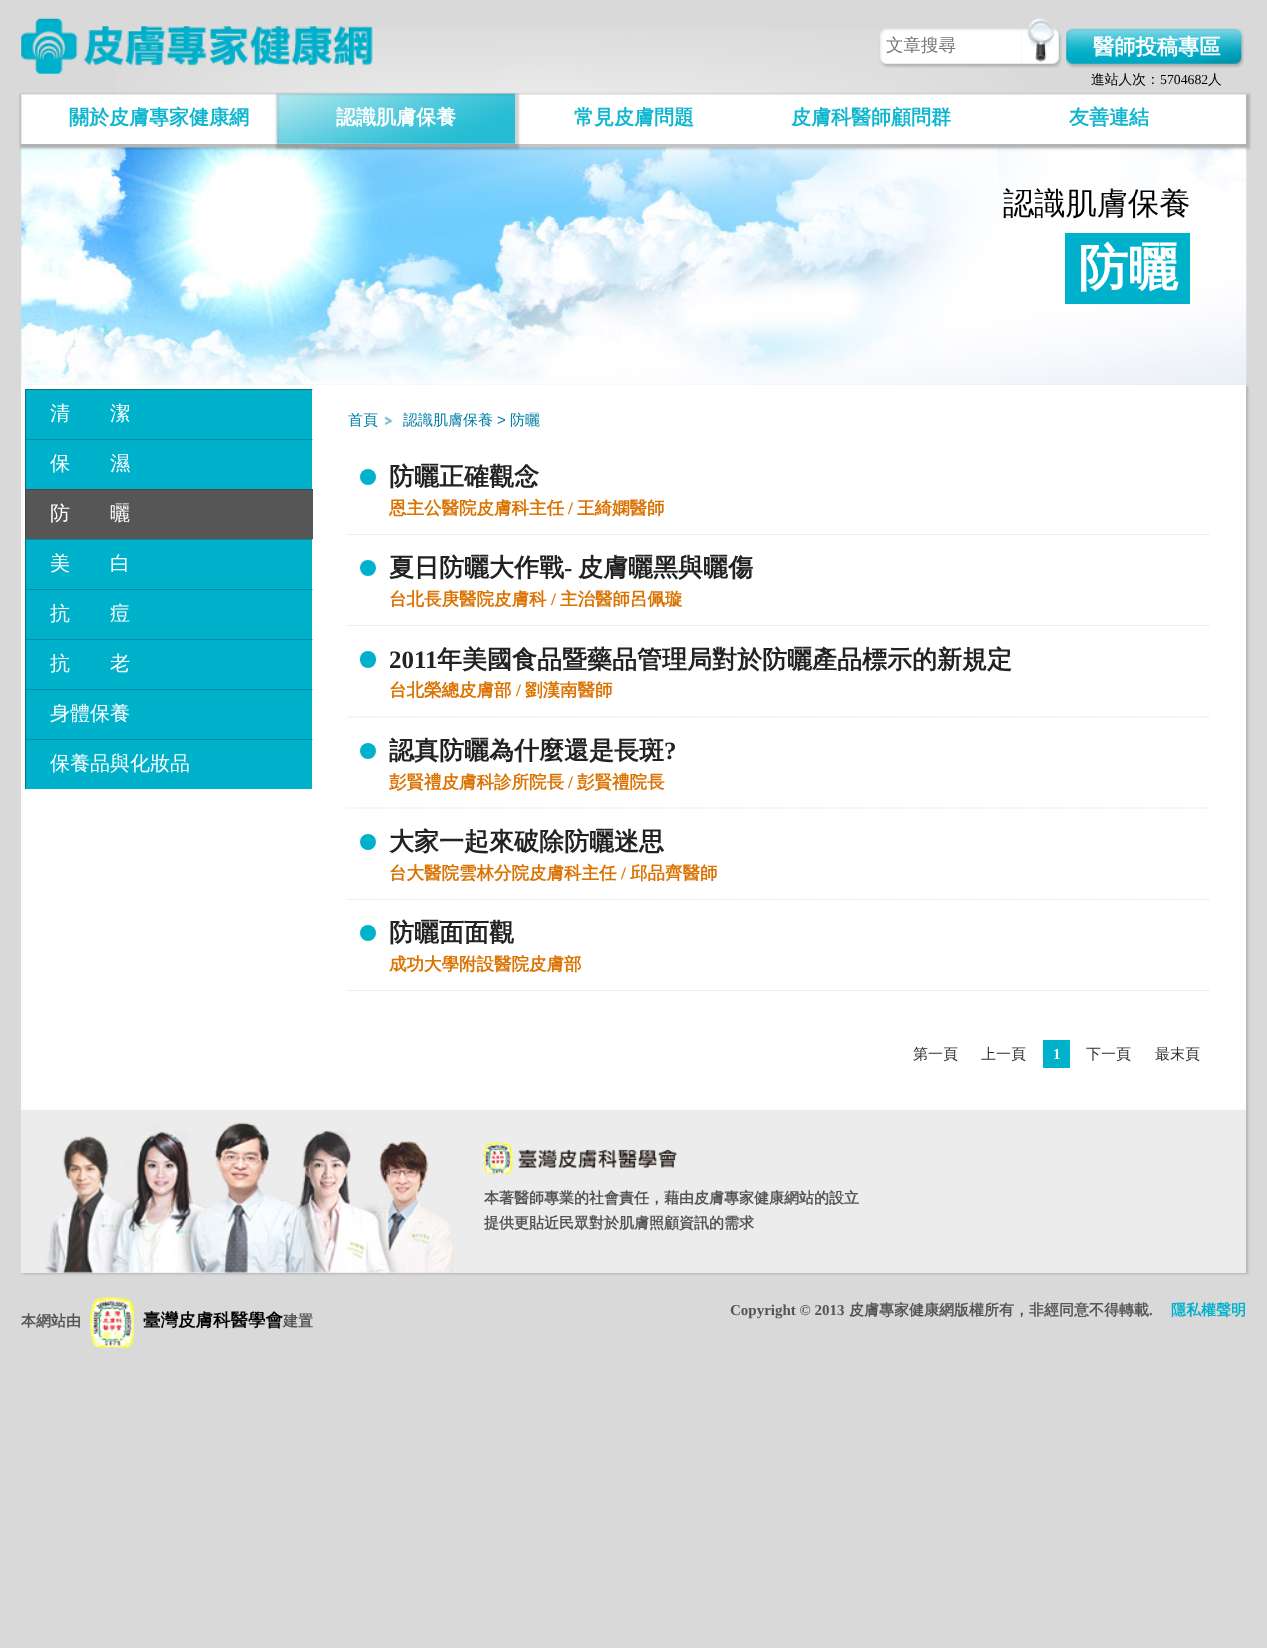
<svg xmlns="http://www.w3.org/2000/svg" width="1267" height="1648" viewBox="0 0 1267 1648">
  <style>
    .t1 { font: 500 17.5px WenQuanYi Zen Hei; fill: #757575; }
    .t2 { font: bold 21.25px WenQuanYi Zen Hei; fill: #fff; }
    .t3 { font: 500 13.75px WenQuanYi Zen Hei; fill: #000; }
    .t4 { font: 13.75px Liberation Serif; fill: #000; }
    .t5 { font: bold 20px WenQuanYi Zen Hei; fill: #10b6cf; }
    .t6 { font: bold 20px WenQuanYi Zen Hei; fill: #fff; }
    .t7 { font: 500 31.25px WenQuanYi Zen Hei; fill: #000; }
    .t8 { font: bold 50px WenQuanYi Zen Hei; fill: #fff; }
    .t9 { font: 500 20px WenQuanYi Zen Hei; fill: #fff; }
    .t10 { font: 500 15px WenQuanYi Zen Hei; fill: #0080a7; }
    .t11 { font: 15px Liberation Sans; fill: #0080a7; }
    .t12 { font: bold 25px WenQuanYi Zen Hei; fill: #222; }
    .t13 { font: bold 17.5px WenQuanYi Zen Hei; fill: #db7303; }
    .t14 { font: bold 17.5px Liberation Serif; fill: #db7303; }
    .t15 { font: bold 25px Liberation Serif; fill: #222; }
    .t16 { font: 500 15px WenQuanYi Zen Hei; fill: #2f2f2f; }
    .t17 { font: bold 15px Liberation Serif; fill: #fff; }
    .t18 { font: bold 15px WenQuanYi Zen Hei; fill: #555; }
    .t19 { font: bold 17.5px WenQuanYi Zen Hei; fill: #000; }
    .t20 { font: bold 15px Liberation Serif; fill: #555; }
    .t21 { font: bold 15px WenQuanYi Zen Hei; fill: #00b1cc; }
  </style>
  <defs>
    <clipPath id="clip1"><rect x="21" y="94" width="1225" height="50"/></clipPath>
    <clipPath id="clip2"><path d="M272 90H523V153H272ZM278 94H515V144H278Z" clip-rule="evenodd"/></clipPath>
    <clipPath id="clip3"><rect x="25" y="389" width="288" height="400"/></clipPath>
    <clipPath id="clip4"><rect x="25" y="389" width="288" height="50"/></clipPath>
    <clipPath id="clip5"><rect x="25" y="439" width="288" height="50"/></clipPath>
    <clipPath id="clip6"><rect x="25" y="489" width="288" height="50"/></clipPath>
    <clipPath id="clip7"><rect x="25" y="539" width="288" height="50"/></clipPath>
    <clipPath id="clip8"><rect x="25" y="589" width="288" height="50"/></clipPath>
    <clipPath id="clip9"><rect x="25" y="639" width="288" height="50"/></clipPath>
    <clipPath id="clip10"><rect x="25" y="689" width="288" height="50"/></clipPath>
    <clipPath id="clip11"><rect x="25" y="739" width="288" height="50"/></clipPath>
  </defs>
  <rect width="100%" height="100%" fill="#d9d9d9"/>
  <image x="114" y="28" width="964" height="120" href="images/1.png"/>
  <image x="21" y="18" width="352" height="56" href="images/2.png"/>
  <image x="879" y="28" width="143" height="40" href="images/3.png"/>
  <rect x="885" y="31" width="3" height="1" fill="#fff"/>
  <text x="886" y="51" class="t1">文章搜尋</text>
  <image x="1021" y="18" width="41" height="50" href="images/4.png"/>
  <image x="1066" y="28" width="178" height="40" href="images/5.png"/>
  <text x="1093" y="54" class="t2">醫師投稿專區</text>
  <text x="1091" y="84" class="t3">進站人次：</text>
  <text x="1160" y="84" class="t4">5704682</text>
  <text x="1208" y="84" class="t3">人</text>
  <image x="21" y="147" width="1226" height="238" href="images/7.png"/>
  <rect x="20" y="94" width="1230" height="55" fill="#1a1a1a33" filter="blur(1px)"/>
  <rect x="22" y="95" width="1224" height="49" fill="#fff"/>
  <g clip-path="url(#clip1)">
    <path d="M-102-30H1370V268H-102ZM22 95H1248V145H22Z" fill="#e8e8e8" fill-rule="evenodd"/>
  </g>
  <text x="69" y="124" class="t5">關於皮膚專家健康網</text>
  <g clip-path="url(#clip2)">
    <rect x="276" y="94" width="243" height="55" fill="#1a1a1a33" filter="blur(1px)"/>
  </g>
  <image x="277" y="93" width="238" height="51" href="images/6.png"/>
  <text x="336" y="124" class="t6">認識肌膚保養</text>
  <text x="574" y="124" class="t5">常見皮膚問題</text>
  <text x="791" y="124" class="t5">皮膚科醫師顧問群</text>
  <text x="1069" y="124" class="t5">友善連結</text>
  <text x="1003" y="214" class="t7">認識肌膚保養</text>
  <rect x="1065" y="233" width="125" height="71" fill="#00b1cc"/>
  <text x="1078" y="285" class="t8">防曬</text>
  <rect x="23" y="386" width="1225" height="725" fill="#1a1a1a33" filter="blur(1px)"/>
  <rect x="21" y="385" width="1225" height="725" fill="#fff"/>
  <rect x="26" y="390" width="286" height="399" fill="#00b1cc"/>
  <g clip-path="url(#clip3)">
    <path d="M-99 265H436V912H-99ZM26 390H314V790H26Z" fill="#078ba0" fill-rule="evenodd"/>
  </g>
  <rect x="23" y="387" width="291" height="404" fill="none" stroke="#fff" stroke-width="4"/>
  <g clip-path="url(#clip4)">
    <path d="M-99 265H436V562H-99ZM26 390H314V440H26Z" fill="#1a1a1a40" fill-rule="evenodd"/>
  </g>
  <text x="50" y="420" class="t9">清　　潔</text>
  <g clip-path="url(#clip5)">
    <path d="M-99 315H436V612H-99ZM26 440H314V490H26Z" fill="#1a1a1a40" fill-rule="evenodd"/>
  </g>
  <text x="50" y="470" class="t9">保　　濕</text>
  <rect x="26" y="490" width="287" height="49" fill="#565656"/>
  <g clip-path="url(#clip6)">
    <path d="M-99 365H436V662H-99ZM26 490H314V540H26Z" fill="#474747" fill-rule="evenodd"/>
  </g>
  <text x="50" y="520" class="t9">防　　曬</text>
  <g clip-path="url(#clip7)">
    <path d="M-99 415H436V712H-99ZM26 540H314V590H26Z" fill="#1a1a1a40" fill-rule="evenodd"/>
  </g>
  <text x="50" y="570" class="t9">美　　白</text>
  <g clip-path="url(#clip8)">
    <path d="M-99 465H436V762H-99ZM26 590H314V640H26Z" fill="#1a1a1a40" fill-rule="evenodd"/>
  </g>
  <text x="50" y="620" class="t9">抗　　痘</text>
  <g clip-path="url(#clip9)">
    <path d="M-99 515H436V812H-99ZM26 640H314V690H26Z" fill="#1a1a1a40" fill-rule="evenodd"/>
  </g>
  <text x="50" y="670" class="t9">抗　　老</text>
  <g clip-path="url(#clip10)">
    <path d="M-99 565H436V862H-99ZM26 690H314V740H26Z" fill="#1a1a1a40" fill-rule="evenodd"/>
  </g>
  <text x="50" y="720" class="t9">身體保養</text>
  <g clip-path="url(#clip11)">
    <path d="M-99 615H436V912H-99ZM26 740H314V790H26Z" fill="#1a1a1a40" fill-rule="evenodd"/>
  </g>
  <text x="50" y="770" class="t9">保養品與化妝品</text>
  <text x="348" y="425" class="t10">首頁</text>
  <image x="384" y="416" width="9" height="10" href="images/8.png"/>
  <text x="403" y="425" class="t10">認識肌膚保養</text>
  <text x="497" y="425" class="t11">&gt;</text>
  <text x="510" y="425" class="t10">防曬</text>
  <path d="M347.5 534.5H1210" fill="none" stroke="#dcdcdc" stroke-width="1.2" stroke-dasharray="1.25 1.25"/>
  <circle cx="368" cy="477" r="8" fill="#00b1cc"/>
  <text x="389" y="485" class="t12">防曬正確觀念</text>
  <text x="389" y="514" class="t13">恩主公醫院皮膚科主任</text>
  <text x="568" y="514" class="t14">/</text>
  <text x="577" y="514" class="t13">王綺嫻醫師</text>
  <path d="M347.5 625.5H1210" fill="none" stroke="#dcdcdc" stroke-width="1.2" stroke-dasharray="1.25 1.25"/>
  <circle cx="368" cy="568" r="8" fill="#00b1cc"/>
  <text x="389" y="576" class="t12">夏日防曬大作戰</text>
  <text x="564" y="576" class="t15">-</text>
  <text x="578" y="576" class="t12">皮膚曬黑與曬傷</text>
  <text x="389" y="605" class="t13">台北長庚醫院皮膚科</text>
  <text x="551" y="605" class="t14">/</text>
  <text x="560" y="605" class="t13">主治醫師呂佩璇</text>
  <path d="M347.5 717H1210" fill="none" stroke="#dcdcdc" stroke-width="1.2" stroke-dasharray="1.25 1.25"/>
  <rect x="360" y="651" width="16" height="17" rx="8" fill="#00b1cc"/>
  <text x="389" y="668" class="t15">2011</text>
  <text x="437" y="668" class="t12">年美國食品暨藥品管理局對於防曬產品標示的新規定</text>
  <text x="389" y="696" class="t13">台北榮總皮膚部</text>
  <text x="516" y="696" class="t14">/</text>
  <text x="525" y="696" class="t13">劉漢南醫師</text>
  <path d="M347.5 808H1210" fill="none" stroke="#dcdcdc" stroke-width="1.2" stroke-dasharray="1.25 1.25"/>
  <circle cx="368" cy="751" r="8" fill="#00b1cc"/>
  <text x="389" y="759" class="t12">認真防曬為什麼還是長斑</text>
  <text x="664" y="759" class="t15">?</text>
  <text x="389" y="788" class="t13">彭賢禮皮膚科診所院長</text>
  <text x="568" y="788" class="t14">/</text>
  <text x="577" y="788" class="t13">彭賢禮院長</text>
  <path d="M347.5 899.5H1210" fill="none" stroke="#dcdcdc" stroke-width="1.2" stroke-dasharray="1.25 1.25"/>
  <circle cx="368" cy="842" r="8" fill="#00b1cc"/>
  <text x="389" y="850" class="t12">大家一起來破除防曬迷思</text>
  <text x="389" y="879" class="t13">台大醫院雲林分院皮膚科主任</text>
  <text x="621" y="879" class="t14">/</text>
  <text x="630" y="879" class="t13">邱品齊醫師</text>
  <path d="M347.5 990.5H1210" fill="none" stroke="#dcdcdc" stroke-width="1.2" stroke-dasharray="1.25 1.25"/>
  <circle cx="368" cy="933" r="8" fill="#00b1cc"/>
  <text x="389" y="941" class="t12">防曬面面觀</text>
  <text x="389" y="970" class="t13">成功大學附設醫院皮膚部</text>
  <text x="913" y="1059" class="t16">第一頁</text>
  <text x="981" y="1059" class="t16">上一頁</text>
  <rect x="1043" y="1040" width="27" height="28" fill="#00b1cc"/>
  <text x="1053" y="1059" class="t17">1</text>
  <text x="1086" y="1059" class="t16">下一頁</text>
  <text x="1155" y="1059" class="t16">最末頁</text>
  <rect x="23" y="1111" width="1225" height="163" fill="#1a1a1a33" filter="blur(1px)"/>
  <rect x="21" y="1110" width="1225" height="163" fill="#ececec"/>
  <image x="45" y="1120" width="409" height="153" href="images/9.png"/>
  <image x="483" y="1142" width="194" height="32" href="images/10.png"/>
  <text x="484" y="1203" class="t18">本著醫師專業的社會責任，藉由皮膚專家健康網站的設立</text>
  <text x="484" y="1228" class="t18">提供更貼近民眾對於肌膚照顧資訊的需求</text>
  <text x="21" y="1326" class="t18">本網站由</text>
  <image x="90" y="1297" width="44" height="51" href="images/11.png"/>
  <text x="143" y="1326" class="t19">臺灣皮膚科醫學會</text>
  <text x="283" y="1326" class="t18">建置</text>
  <text x="730" y="1315" class="t20">Copyright © 2013</text>
  <text x="849" y="1315" class="t18">皮膚專家健康網版權所有，非經同意不得轉載</text>
  <text x="1149" y="1315" class="t20">.</text>
  <text x="1171" y="1315" class="t21">隱私權聲明</text>
</svg>
